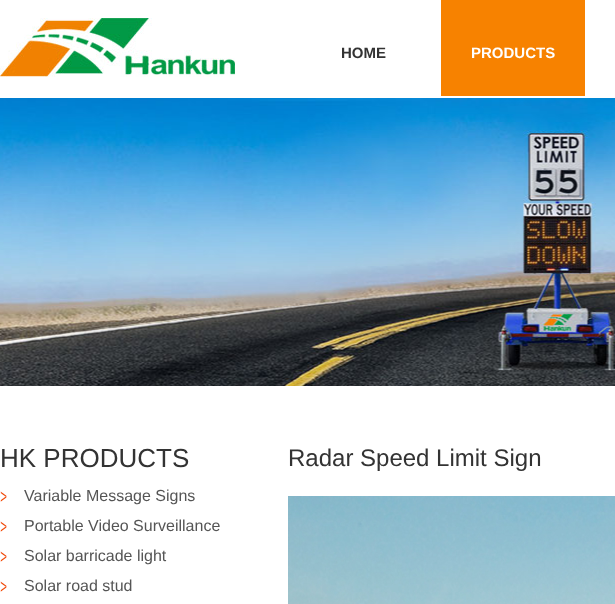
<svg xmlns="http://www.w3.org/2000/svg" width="615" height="604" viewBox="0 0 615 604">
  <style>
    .t1 { font: bold 15px Liberation Sans; fill: #333; }
    .t2 { font: bold 15px Liberation Sans; fill: #fff; }
    .t3 { font: 26px Liberation Sans; fill: #333; }
    .t4 { font: 16px Liberation Sans; fill: #555; }
    .t5 { font: 24px Liberation Sans; fill: #333; }
  </style>
  <rect width="100%" height="100%" fill="#fff"/>
  <image x="0" y="18" width="235" height="59" href="images/1.png"/>
  <text x="341" y="58" class="t1">HOME</text>
  <rect x="441" y="0" width="144" height="96" fill="#f78200"/>
  <text x="471" y="58" class="t2">PRODUCTS</text>
  <image x="0" y="98" width="615" height="288" href="images/2.png"/>
  <text x="0" y="467" class="t3">HK PRODUCTS</text>
  <image x="0" y="491" width="7" height="11" href="images/3.png"/>
  <text x="24" y="501" class="t4">Variable Message Signs</text>
  <image x="0" y="521" width="7" height="11" href="images/3.png"/>
  <text x="24" y="531" class="t4">Portable Video Surveillance</text>
  <image x="0" y="551" width="7" height="11" href="images/3.png"/>
  <text x="24" y="561" class="t4">Solar barricade light</text>
  <image x="0" y="581" width="7" height="11" href="images/3.png"/>
  <text x="24" y="591" class="t4">Solar road stud</text>
  <text x="288" y="466" class="t5">Radar Speed Limit Sign</text>
  <image x="288" y="496" width="327" height="108" href="images/4.png"/>
</svg>
